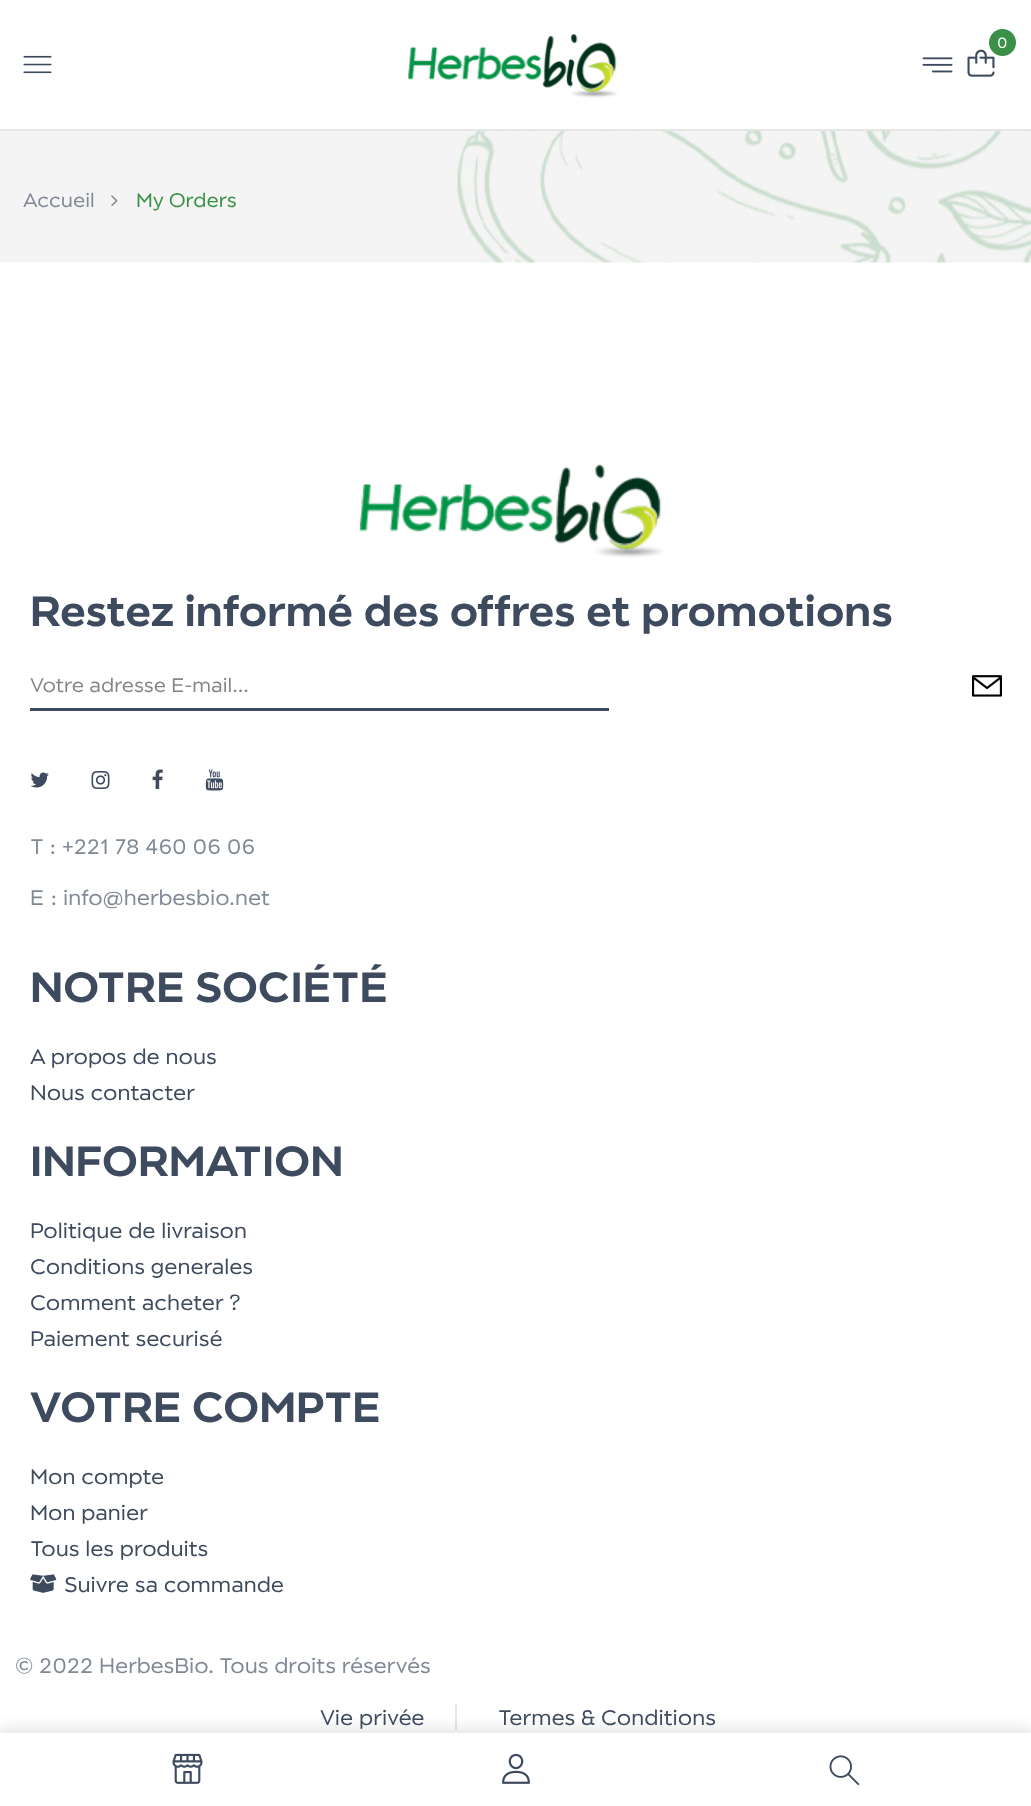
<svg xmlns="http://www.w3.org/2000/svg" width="1031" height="1806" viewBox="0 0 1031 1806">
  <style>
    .t1 { font: 15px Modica; fill: #fff; }
    .t2 { font: 19.5px Modica; fill: #818995; }
    .t3 { font: 19.5px Modica; fill: #3a9046; }
    .t4 { font: 600 42px Modica; fill: #3e4a5e; }
    .t5 { font: 19.5px Modica; fill: #868686; }
    .t6 { font: 21px Modica; fill: #818995; }
    .t7 { font: 21px Modica; fill: #3e4a5e; }
  </style>
  <defs>
    <clipPath id="clip1"><rect x="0" y="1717" width="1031" height="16"/></clipPath>
  </defs>
  <rect width="100%" height="100%" fill="#fff"/>
  <rect x="0" y="129" width="1031" height="2" fill="#e5e5e5"/>
  <image x="407" y="34" width="210" height="64" href="images/1.png"/>
  <image x="967" y="49" width="28" height="28" href="images/2.png"/>
  <circle cx="1002.5" cy="42.5" r="13.5" fill="#3a9046"/>
  <text x="997" y="48" class="t1">0</text>
  <image x="922" y="57" width="31" height="16" href="images/3.png"/>
  <image x="23" y="55" width="29" height="19" href="images/4.png"/>
  <rect x="455" y="1704" width="2" height="26" fill="#e6e6e6"/>
  <g clip-path="url(#clip1)">
    <rect x="-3" y="1731" width="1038" height="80" fill="#8f8f8f4d" filter="blur(9px)"/>
  </g>
  <image x="172" y="1753" width="31" height="31" href="images/5.png"/>
  <image x="502" y="1753" width="28" height="31" href="images/6.png"/>
  <image x="829" y="1755" width="31" height="31" href="images/7.png"/>
  <image x="0" y="131" width="1031" height="132" href="images/8.png"/>
  <text x="23" y="207" class="t2">Accueil</text>
  <image x="111" y="195" width="7" height="12" href="images/9.png"/>
  <text x="136" y="207" class="t3">My Orders</text>
  <image x="359" y="464" width="304" height="94" href="images/10.png"/>
  <text x="30" y="626" class="t4">Restez informé des offres et promotions</text>
  <rect x="30" y="708" width="579" height="3" fill="#3e4a5e"/>
  <text x="30" y="692" class="t5">Votre adresse E-mail...</text>
  <image x="972" y="675" width="30" height="22" href="images/11.png"/>
  <image x="30" y="772" width="19" height="16" href="images/12.png"/>
  <image x="91" y="771" width="19" height="18" href="images/13.png"/>
  <image x="152" y="769" width="11" height="20" href="images/14.png"/>
  <image x="205" y="769" width="19" height="22" href="images/15.png"/>
  <text x="30" y="854" class="t6">T : +221 78 460 06 06</text>
  <text x="30" y="905" class="t6">E : info@herbesbio.net</text>
  <text x="30" y="1002" class="t4">NOTRE SOCIÉTÉ</text>
  <text x="30" y="1064" class="t7">A propos de nous</text>
  <text x="30" y="1100" class="t7">Nous contacter</text>
  <text x="30" y="1176" class="t4">INFORMATION</text>
  <text x="30" y="1238" class="t7">Politique de livraison</text>
  <text x="30" y="1274" class="t7">Conditions generales</text>
  <text x="30" y="1310" class="t7">Comment acheter ?</text>
  <text x="30" y="1346" class="t7">Paiement securisé</text>
  <text x="30" y="1422" class="t4">VOTRE COMPTE</text>
  <text x="30" y="1484" class="t7">Mon compte</text>
  <text x="30" y="1520" class="t7">Mon panier</text>
  <text x="30" y="1556" class="t7">Tous les produits</text>
  <image x="30" y="1574" width="27" height="19" href="images/16.png"/>
  <text x="64" y="1592" class="t7">Suivre sa commande</text>
  <text x="15" y="1673" class="t6">© 2022 HerbesBio. Tous droits réservés</text>
  <text x="320" y="1725" class="t7">Vie privée</text>
  <text x="498" y="1725" class="t7">Termes &amp; Conditions</text>
</svg>
